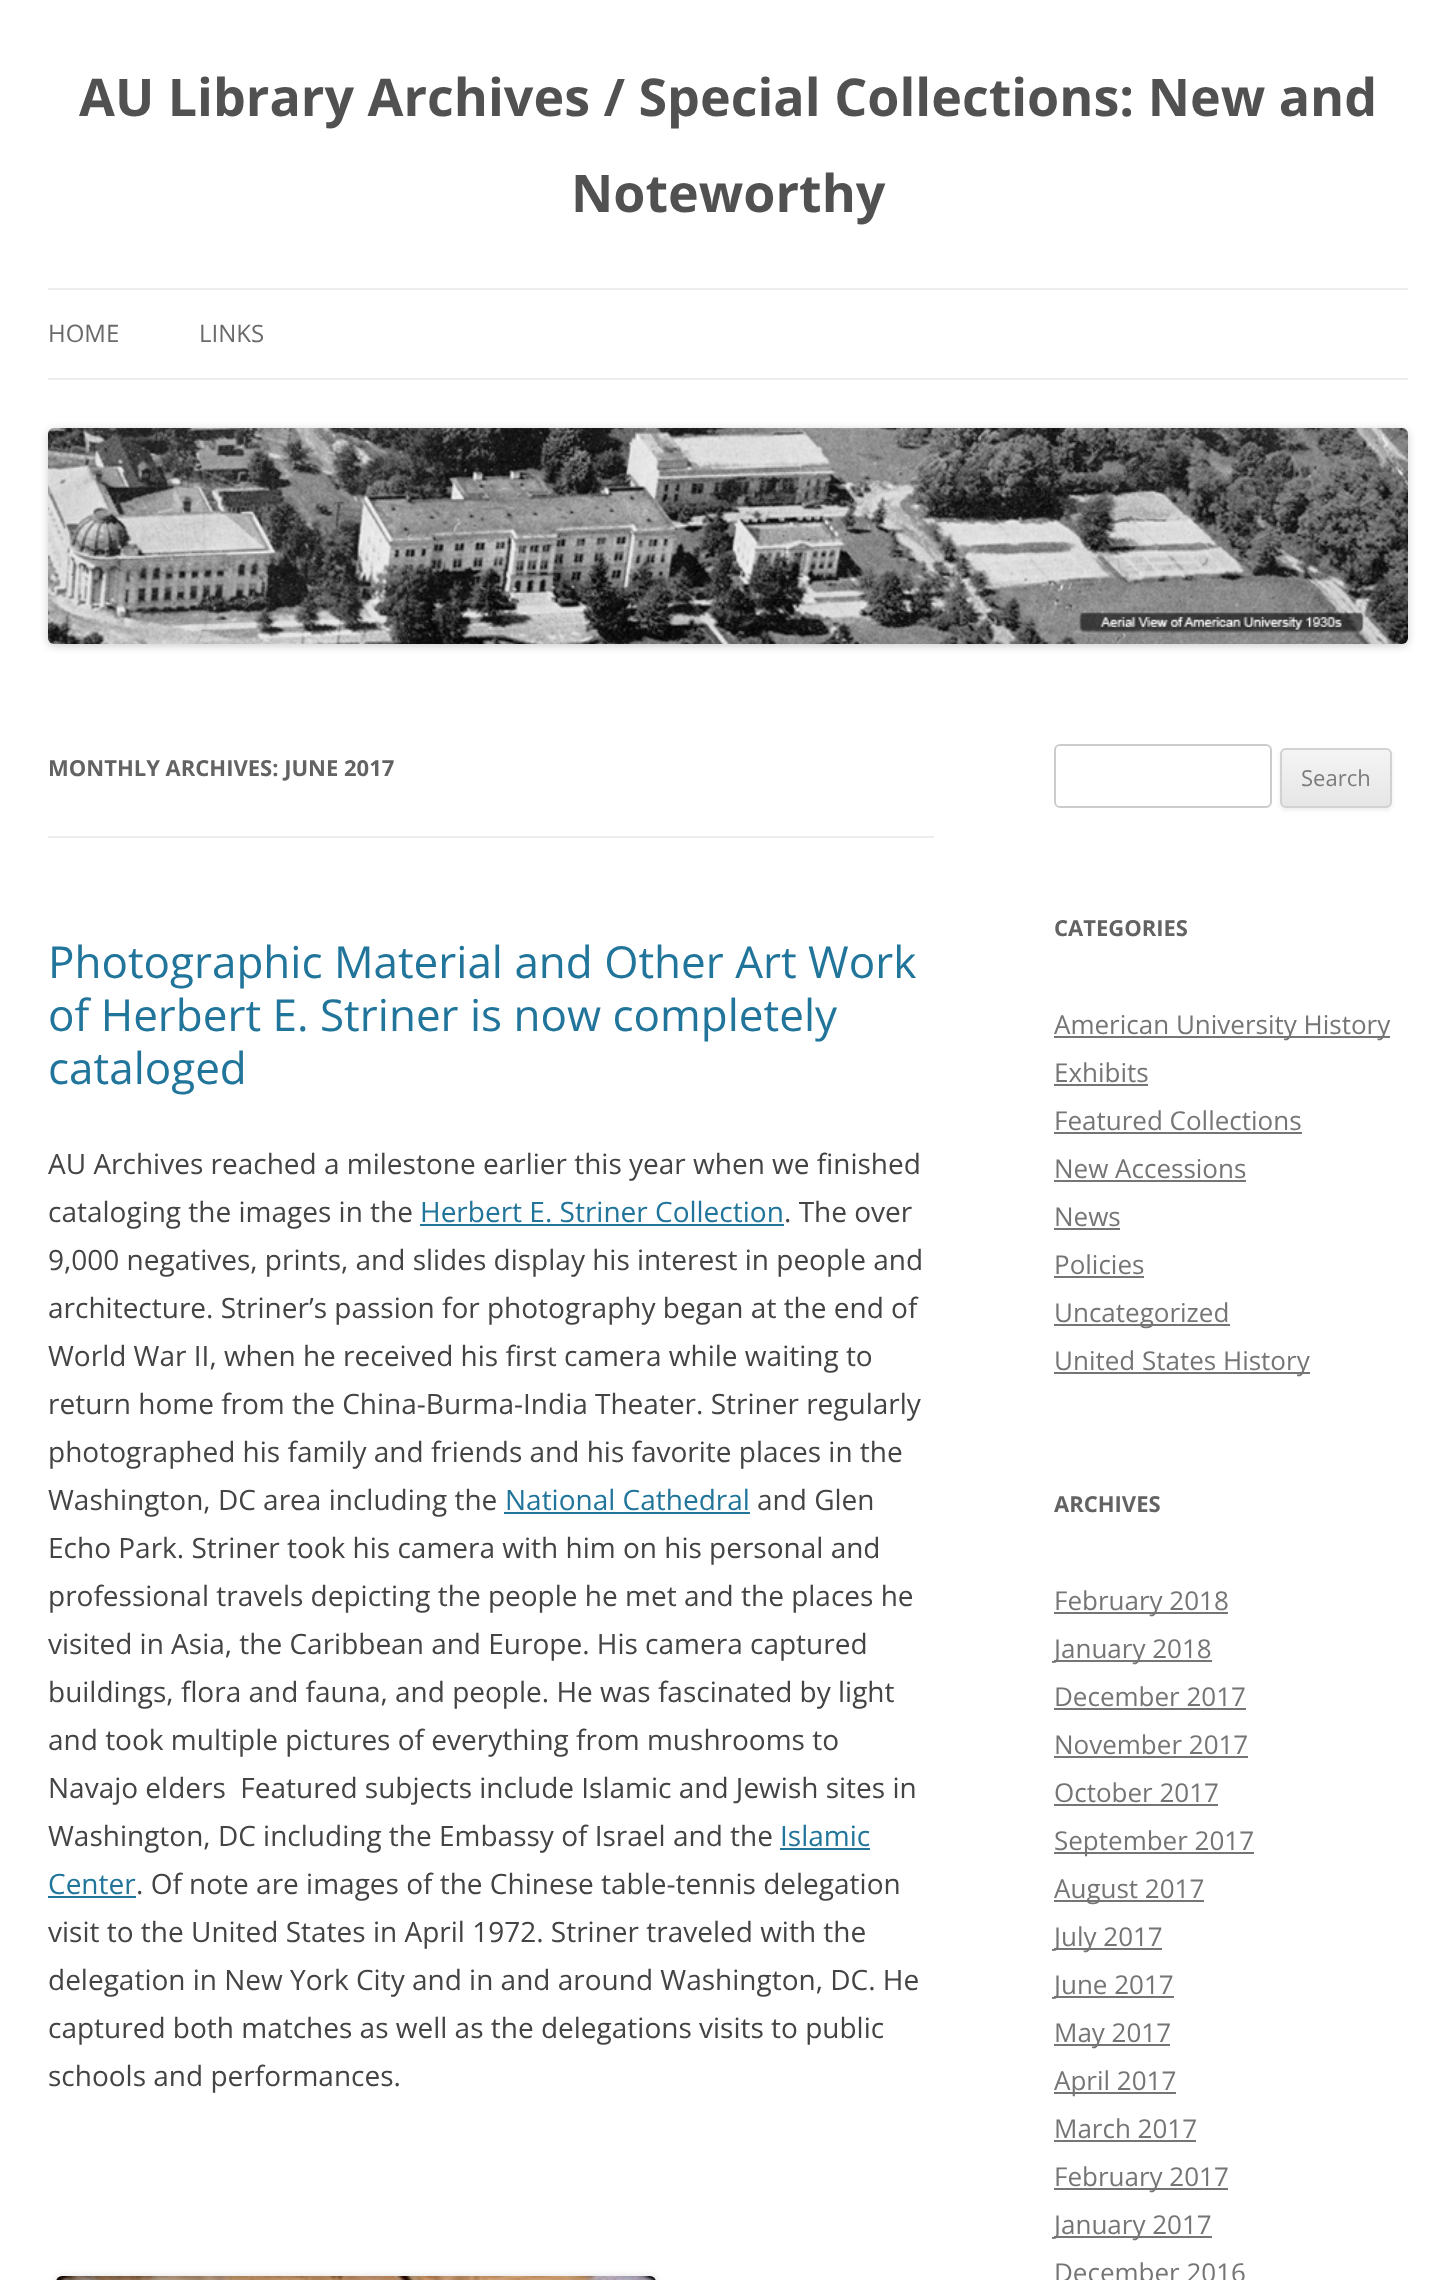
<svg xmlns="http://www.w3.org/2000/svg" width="1456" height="2280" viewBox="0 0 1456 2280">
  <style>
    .t1 { font: bold 52px Open Sans; fill: #515151; }
    .t2 { font: 24px Open Sans; fill: #6a6a6a; }
    .t3 { font: bold 22px Open Sans; fill: #636363; }
    .t4 { font: 44px Open Sans; fill: #21759b; }
    .t5 { font: 28px Open Sans; fill: #444; }
    .t6 { font: 28px Open Sans; fill: #21759b; }
    .t7 { font: 22px Open Sans; fill: #7c7c7c; }
    .t8 { font: 26px Open Sans; fill: #757575; }
  </style>
  <defs>
    <clipPath id="clip1"><rect x="1280" y="748" width="112" height="60" rx="6"/></clipPath>
    <linearGradient id="g1" gradientUnits="userSpaceOnUse" x1="1336" y1="750" x2="1336" y2="806"><stop offset="0" stop-color="#f4f4f4"/><stop offset="1" stop-color="#e6e6e6"/></linearGradient>
  </defs>
  <rect width="100%" height="100%" fill="#fff"/>
  <text x="79" y="116" class="t1">AU Library Archives / Special Collections: New and</text>
  <text x="571" y="212" class="t1">Noteworthy</text>
  <rect x="48" y="288" width="1360" height="2" fill="#ededed"/>
  <rect x="48" y="378" width="1360" height="2" fill="#ededed"/>
  <text x="48" y="342" class="t2">HOME</text>
  <text x="199" y="342" class="t2">LINKS</text>
  <rect x="48" y="430" width="1360" height="216" rx="6" fill="#00000033" filter="blur(4px)"/>
  <image x="48" y="428" width="1360" height="216" href="images/1.png"/>
  <rect x="48" y="836" width="886" height="2" fill="#ededed"/>
  <text x="48" y="776" class="t3">MONTHLY ARCHIVES: JUNE 2017</text>
  <text x="48" y="978" class="t4">Photographic Material and Other Art Work</text>
  <text x="48" y="1031" class="t4">of Herbert E. Striner is now completely</text>
  <text x="48" y="1084" class="t4">cataloged</text>
  <text x="48" y="1174" class="t5">AU Archives reached a milestone earlier this year when we finished</text>
  <text x="48" y="1222" class="t5">cataloging the images in the</text>
  <text x="420" y="1222" class="t6">Herbert E. Striner Collection</text>
  <rect x="420" y="1224" width="364" height="2" fill="#21759b"/>
  <text x="784" y="1222" class="t5">. The over</text>
  <text x="48" y="1270" class="t5">9,000 negatives, prints, and slides display his interest in people and</text>
  <text x="48" y="1318" class="t5">architecture. Striner’s passion for photography began at the end of</text>
  <text x="48" y="1366" class="t5">World War II, when he received his first camera while waiting to</text>
  <text x="48" y="1414" class="t5">return home from the China-Burma-India Theater. Striner regularly</text>
  <text x="48" y="1462" class="t5">photographed his family and friends and his favorite places in the</text>
  <text x="48" y="1510" class="t5">Washington, DC area including the</text>
  <text x="505" y="1510" class="t6">National Cathedral</text>
  <rect x="504" y="1512" width="246" height="2" fill="#21759b"/>
  <text x="757" y="1510" class="t5">and Glen</text>
  <text x="48" y="1558" class="t5">Echo Park. Striner took his camera with him on his personal and</text>
  <text x="48" y="1606" class="t5">professional travels depicting the people he met and the places he</text>
  <text x="48" y="1654" class="t5">visited in Asia, the Caribbean and Europe. His camera captured</text>
  <text x="48" y="1702" class="t5">buildings, flora and fauna, and people. He was fascinated by light</text>
  <text x="48" y="1750" class="t5">and took multiple pictures of everything from mushrooms to</text>
  <text x="48" y="1798" class="t5" xml:space="preserve">Navajo elders  Featured subjects include Islamic and Jewish sites in</text>
  <text x="48" y="1846" class="t5">Washington, DC including the Embassy of Israel and the</text>
  <text x="780" y="1846" class="t6">Islamic</text>
  <rect x="780" y="1848" width="90" height="2" fill="#21759b"/>
  <text x="48" y="1894" class="t6">Center</text>
  <rect x="48" y="1896" width="88" height="2" fill="#21759b"/>
  <text x="136" y="1894" class="t5">. Of note are images of the Chinese table-tennis delegation</text>
  <text x="48" y="1942" class="t5">visit to the United States in April 1972. Striner traveled with the</text>
  <text x="48" y="1990" class="t5">delegation in New York City and in and around Washington, DC. He</text>
  <text x="48" y="2038" class="t5">captured both matches as well as the delegations visits to public</text>
  <text x="48" y="2086" class="t5">schools and performances.</text>
  <rect x="56" y="2278" width="600" height="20" rx="6" fill="#00000033" filter="blur(4px)"/>
  <image x="56" y="2276" width="600" height="4" href="images/2.png"/>
  <rect x="1055" y="745" width="216" height="62" rx="5" fill="none" stroke="#ccc" stroke-width="2"/>
  <rect x="1280" y="750" width="112" height="60" rx="6" fill="#4040401a" filter="blur(2px)"/>
  <g clip-path="url(#clip1)">
    <rect x="1280" y="750" width="112" height="56" fill="url(#g1)"/>
  </g>
  <rect x="1281" y="749" width="110" height="58" rx="5" fill="none" stroke="#d2d2d2" stroke-width="2"/>
  <text x="1301" y="786" class="t7">Search</text>
  <text x="1054" y="936" class="t3">CATEGORIES</text>
  <rect x="1054" y="1036" width="336" height="2" fill="#757575"/>
  <text x="1054" y="1034" class="t8">American University History</text>
  <text x="1054" y="1082" class="t8">Exhibits</text>
  <rect x="1054" y="1084" width="94" height="2" fill="#757575"/>
  <text x="1054" y="1130" class="t8">Featured Collections</text>
  <rect x="1054" y="1132" width="248" height="2" fill="#757575"/>
  <text x="1054" y="1178" class="t8">New Accessions</text>
  <rect x="1054" y="1180" width="192" height="2" fill="#757575"/>
  <text x="1054" y="1226" class="t8">News</text>
  <rect x="1054" y="1228" width="66" height="2" fill="#757575"/>
  <text x="1054" y="1274" class="t8">Policies</text>
  <rect x="1054" y="1276" width="90" height="2" fill="#757575"/>
  <rect x="1054" y="1324" width="176" height="2" fill="#757575"/>
  <text x="1054" y="1322" class="t8">Uncategorized</text>
  <rect x="1054" y="1372" width="256" height="2" fill="#757575"/>
  <text x="1054" y="1370" class="t8">United States History</text>
  <text x="1054" y="1512" class="t3">ARCHIVES</text>
  <rect x="1054" y="1612" width="174" height="2" fill="#757575"/>
  <text x="1054" y="1610" class="t8">February 2018</text>
  <rect x="1054" y="1660" width="158" height="2" fill="#757575"/>
  <text x="1054" y="1658" class="t8">January 2018</text>
  <text x="1054" y="1706" class="t8">December 2017</text>
  <rect x="1054" y="1708" width="192" height="2" fill="#757575"/>
  <text x="1054" y="1754" class="t8">November 2017</text>
  <rect x="1054" y="1756" width="194" height="2" fill="#757575"/>
  <text x="1054" y="1802" class="t8">October 2017</text>
  <rect x="1054" y="1804" width="164" height="2" fill="#757575"/>
  <rect x="1054" y="1852" width="200" height="2" fill="#757575"/>
  <text x="1054" y="1850" class="t8">September 2017</text>
  <rect x="1054" y="1900" width="150" height="2" fill="#757575"/>
  <text x="1054" y="1898" class="t8">August 2017</text>
  <rect x="1054" y="1948" width="108" height="2" fill="#757575"/>
  <text x="1054" y="1946" class="t8">July 2017</text>
  <rect x="1054" y="1996" width="120" height="2" fill="#757575"/>
  <text x="1054" y="1994" class="t8">June 2017</text>
  <rect x="1054" y="2044" width="116" height="2" fill="#757575"/>
  <text x="1054" y="2042" class="t8">May 2017</text>
  <rect x="1054" y="2092" width="122" height="2" fill="#757575"/>
  <text x="1054" y="2090" class="t8">April 2017</text>
  <text x="1054" y="2138" class="t8">March 2017</text>
  <rect x="1054" y="2140" width="142" height="2" fill="#757575"/>
  <rect x="1054" y="2188" width="174" height="2" fill="#757575"/>
  <text x="1054" y="2186" class="t8">February 2017</text>
  <rect x="1054" y="2236" width="158" height="2" fill="#757575"/>
  <text x="1054" y="2234" class="t8">January 2017</text>
  <text x="1054" y="2282" class="t8">December 2016</text>
</svg>
